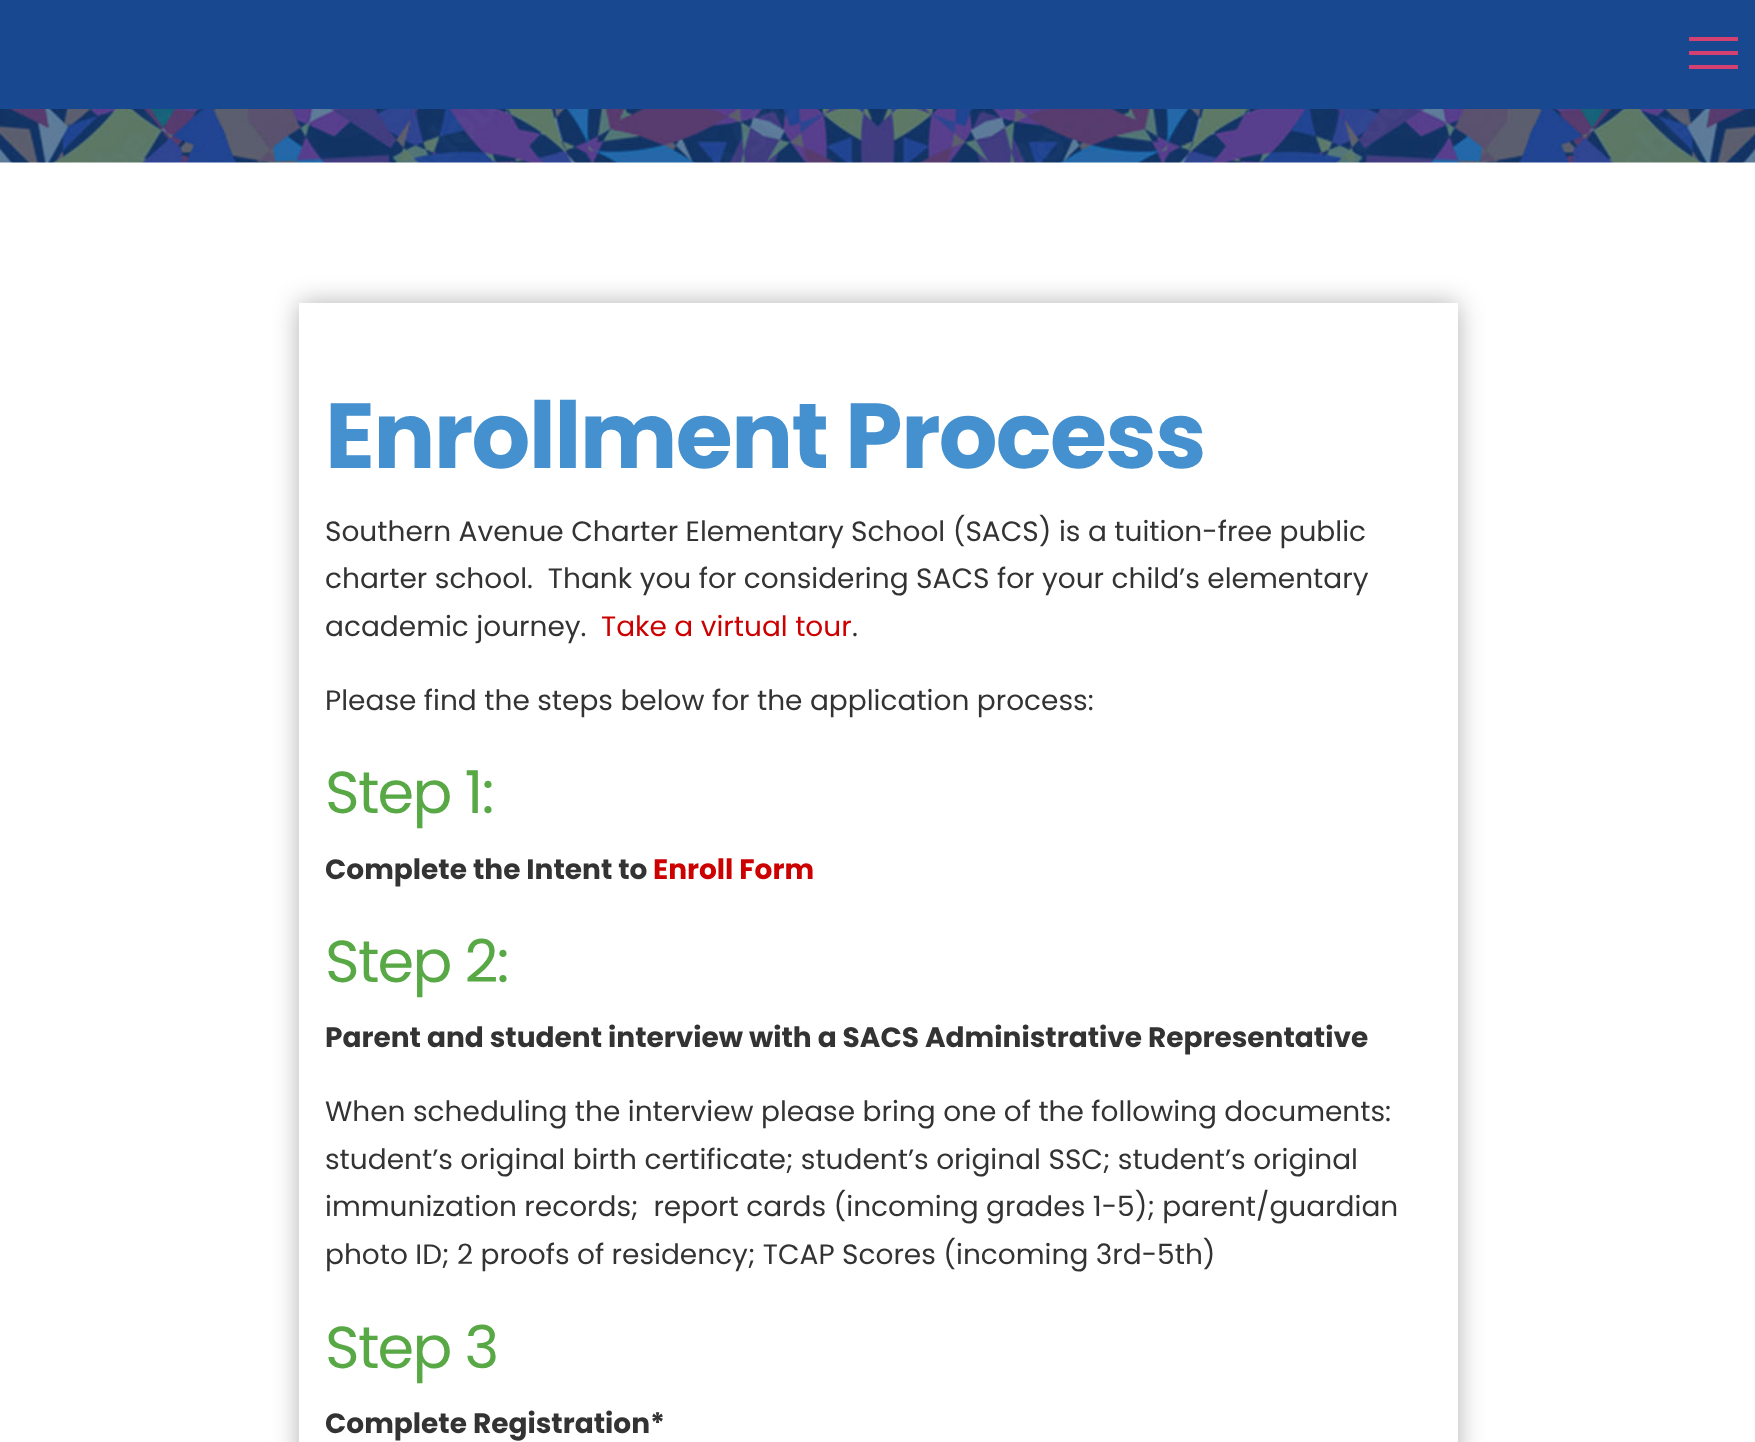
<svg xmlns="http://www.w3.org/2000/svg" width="1755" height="1442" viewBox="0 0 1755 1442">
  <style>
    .t1 { font: bold 92.4px Poppins; letter-spacing: -1.75px; fill: #4590ce; }
    .t2 { font: 28px Poppins; fill: #333; }
    .t3 { font: 28px Poppins; fill: #c00; }
    .t4 { font: 59px Poppins; letter-spacing: -1.75px; fill: #58a846; }
    .t5 { font: bold 28px Poppins; fill: #333; }
    .t6 { font: bold 28px Poppins; fill: #c00; }
  </style>
  <rect width="100%" height="100%" fill="#fff"/>
  <rect x="0" y="0" width="1755" height="109" fill="#18488f"/>
  <rect x="1689" y="51" width="49" height="4" fill="#d44170"/>
  <rect x="1689" y="37" width="49" height="4" fill="#d44170"/>
  <rect x="1689" y="65" width="49" height="4" fill="#d44170"/>
  <image x="0" y="109" width="1755" height="54" href="images/1.png"/>
  <rect x="299" y="303" width="1159" height="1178" fill="#0000004d" filter="blur(13px)"/>
  <rect x="299" y="303" width="1159" height="1139" fill="#fff"/>
  <text x="325" y="468" class="t1">Enrollment Process</text>
  <text x="325" y="541" class="t2">Southern Avenue Charter Elementary School (SACS) is a tuition-free public</text>
  <text x="325" y="588" class="t2" xml:space="preserve">charter school.  Thank you for considering SACS for your child’s elementary</text>
  <text x="325" y="636" class="t2">academic journey.</text>
  <text x="601" y="636" class="t3">Take a virtual tour</text>
  <text x="852" y="636" class="t2">.</text>
  <text x="325" y="710" class="t2">Please find the steps below for the application process:</text>
  <text x="325" y="813" class="t4">Step 1:</text>
  <text x="325" y="879" class="t5">Complete the Intent to</text>
  <text x="653" y="879" class="t6">Enroll Form</text>
  <text x="325" y="982" class="t4">Step 2:</text>
  <text x="325" y="1047" class="t5">Parent and student interview with a SACS Administrative Representative</text>
  <text x="325" y="1121" class="t2">When scheduling the interview please bring one of the following documents:</text>
  <text x="325" y="1169" class="t2">student’s original birth certificate; student’s original SSC; student’s original</text>
  <text x="325" y="1216" class="t2" xml:space="preserve">immunization records;  report cards (incoming grades 1-5); parent/guardian</text>
  <text x="325" y="1264" class="t2">photo ID; 2 proofs of residency; TCAP Scores (incoming 3rd-5th)</text>
  <text x="325" y="1368" class="t4">Step 3</text>
  <text x="325" y="1433" class="t5">Complete Registration*</text>
</svg>
